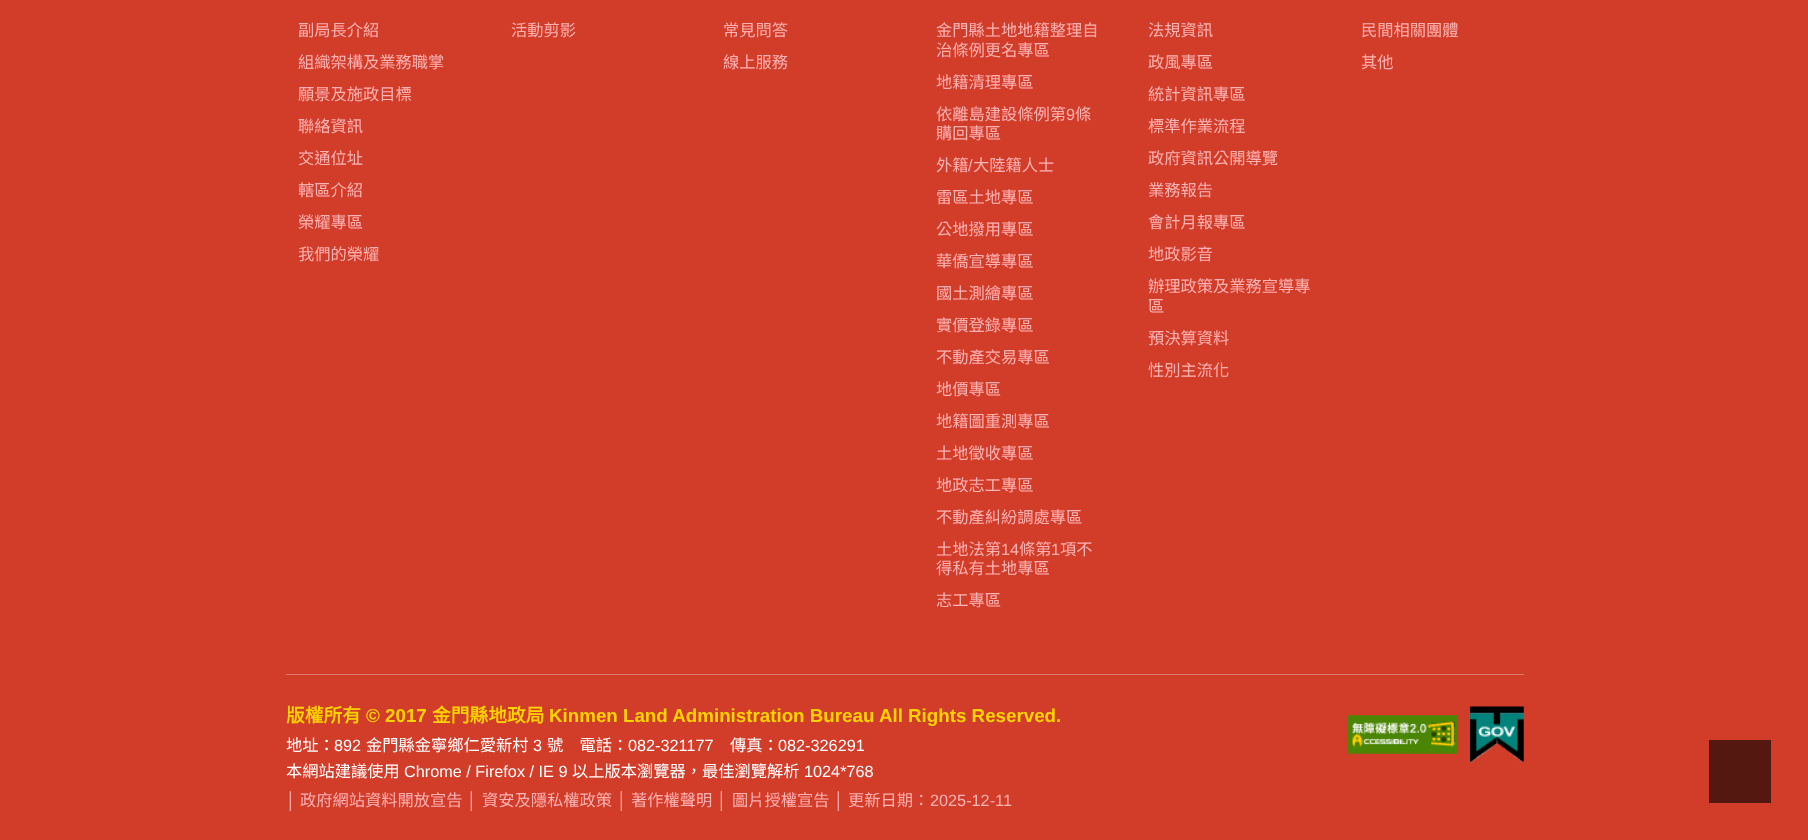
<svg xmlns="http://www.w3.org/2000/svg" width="1808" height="840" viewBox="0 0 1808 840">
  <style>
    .t1 { font: 16.25px Noto Sans CJK TC; fill: #ffb2b2; }
    .t2 { font: 16.25px Liberation Sans; fill: #ffb2b2; }
    .t3 { font: bold 18.75px Noto Sans CJK TC; fill: #ffd400; }
    .t4 { font: bold 18.75px Liberation Sans; fill: #ffd400; }
    .t5 { font: 16.25px Noto Sans CJK TC; fill: #fff; }
    .t6 { font: 16.25px Liberation Sans; fill: #fff; }
  </style>
  <rect width="100%" height="100%" fill="#d23d2a"/>
  <rect x="286" y="674" width="1238" height="1" fill="#e0786a"/>
  <text x="298" y="36" class="t1">副局長介紹</text>
  <text x="298" y="68" class="t1">組織架構及業務職掌</text>
  <text x="298" y="100" class="t1">願景及施政目標</text>
  <text x="298" y="132" class="t1">聯絡資訊</text>
  <text x="298" y="164" class="t1">交通位址</text>
  <text x="298" y="196" class="t1">轄區介紹</text>
  <text x="298" y="228" class="t1">榮耀專區</text>
  <text x="298" y="260" class="t1">我們的榮耀</text>
  <text x="511" y="36" class="t1">活動剪影</text>
  <text x="723" y="36" class="t1">常見問答</text>
  <text x="723" y="68" class="t1">線上服務</text>
  <text x="936" y="36" class="t1">金門縣土地地籍整理自</text>
  <text x="936" y="56" class="t1">治條例更名專區</text>
  <text x="936" y="88" class="t1">地籍清理專區</text>
  <text x="936" y="120" class="t1">依離島建設條例第</text>
  <text x="1066" y="120" class="t2">9</text>
  <text x="1075" y="120" class="t1">條</text>
  <text x="936" y="139" class="t1">購回專區</text>
  <text x="936" y="171" class="t1">外籍</text>
  <text x="968" y="171" class="t2">/</text>
  <text x="973" y="171" class="t1">大陸籍人士</text>
  <text x="936" y="203" class="t1">雷區土地專區</text>
  <text x="936" y="235" class="t1">公地撥用專區</text>
  <text x="936" y="267" class="t1">華僑宣導專區</text>
  <text x="936" y="299" class="t1">國土測繪專區</text>
  <text x="936" y="331" class="t1">實價登錄專區</text>
  <text x="936" y="363" class="t1">不動產交易專區</text>
  <text x="936" y="395" class="t1">地價專區</text>
  <text x="936" y="427" class="t1">地籍圖重測專區</text>
  <text x="936" y="459" class="t1">土地徵收專區</text>
  <text x="936" y="491" class="t1">地政志工專區</text>
  <text x="936" y="523" class="t1">不動產糾紛調處專區</text>
  <text x="936" y="555" class="t1">土地法第</text>
  <text x="1001" y="555" class="t2">14</text>
  <text x="1019" y="555" class="t1">條第</text>
  <text x="1051" y="555" class="t2">1</text>
  <text x="1060" y="555" class="t1">項不</text>
  <text x="936" y="574" class="t1">得私有土地專區</text>
  <text x="936" y="606" class="t1">志工專區</text>
  <text x="1148" y="36" class="t1">法規資訊</text>
  <text x="1148" y="68" class="t1">政風專區</text>
  <text x="1148" y="100" class="t1">統計資訊專區</text>
  <text x="1148" y="132" class="t1">標準作業流程</text>
  <text x="1148" y="164" class="t1">政府資訊公開導覽</text>
  <text x="1148" y="196" class="t1">業務報告</text>
  <text x="1148" y="228" class="t1">會計月報專區</text>
  <text x="1148" y="260" class="t1">地政影音</text>
  <text x="1148" y="292" class="t1">辦理政策及業務宣導專</text>
  <text x="1148" y="312" class="t1">區</text>
  <text x="1148" y="344" class="t1">預決算資料</text>
  <text x="1148" y="376" class="t1">性別主流化</text>
  <text x="1361" y="36" class="t1">民間相關團體</text>
  <text x="1361" y="68" class="t1">其他</text>
  <text x="286" y="722" class="t3">版權所有</text>
  <text x="366" y="722" class="t4">© 2017</text>
  <text x="432" y="722" class="t3">金門縣地政局</text>
  <text x="549" y="722" class="t4">Kinmen Land Administration Bureau All Rights Reserved.</text>
  <text x="286" y="751" class="t5">地址：</text>
  <text x="334" y="751" class="t6">892</text>
  <text x="366" y="751" class="t5">金門縣金寧鄉仁愛新村</text>
  <text x="533" y="751" class="t6">3</text>
  <text x="547" y="751" class="t5">號　電話：</text>
  <text x="628" y="751" class="t6">082-321177</text>
  <text x="730" y="751" class="t5">傳真：</text>
  <text x="778" y="751" class="t6">082-326291</text>
  <text x="286" y="777" class="t5">本網站建議使用</text>
  <text x="404" y="777" class="t6">Chrome / Firefox / IE 9</text>
  <text x="572" y="777" class="t5">以上版本瀏覽器，最佳瀏覽解析</text>
  <text x="804" y="777" class="t6">1024*768</text>
  <text x="286" y="806" class="t2">│</text>
  <text x="300" y="806" class="t1">政府網站資料開放宣告</text>
  <text x="467" y="806" class="t2">│</text>
  <text x="482" y="806" class="t1">資安及隱私權政策</text>
  <text x="617" y="806" class="t2">│</text>
  <text x="631" y="806" class="t1">著作權聲明</text>
  <text x="717" y="806" class="t2">│</text>
  <text x="732" y="806" class="t1">圖片授權宣告</text>
  <text x="834" y="806" class="t2">│</text>
  <text x="848" y="806" class="t1">更新日期：</text>
  <text x="930" y="806" class="t2">2025-12-11</text>
  <image x="1347" y="715" width="111" height="39" href="images/1.png"/>
  <image x="1470" y="706" width="54" height="57" href="images/2.png"/>
  <rect x="1709" y="740" width="62" height="63" fill="#541811"/>
</svg>
